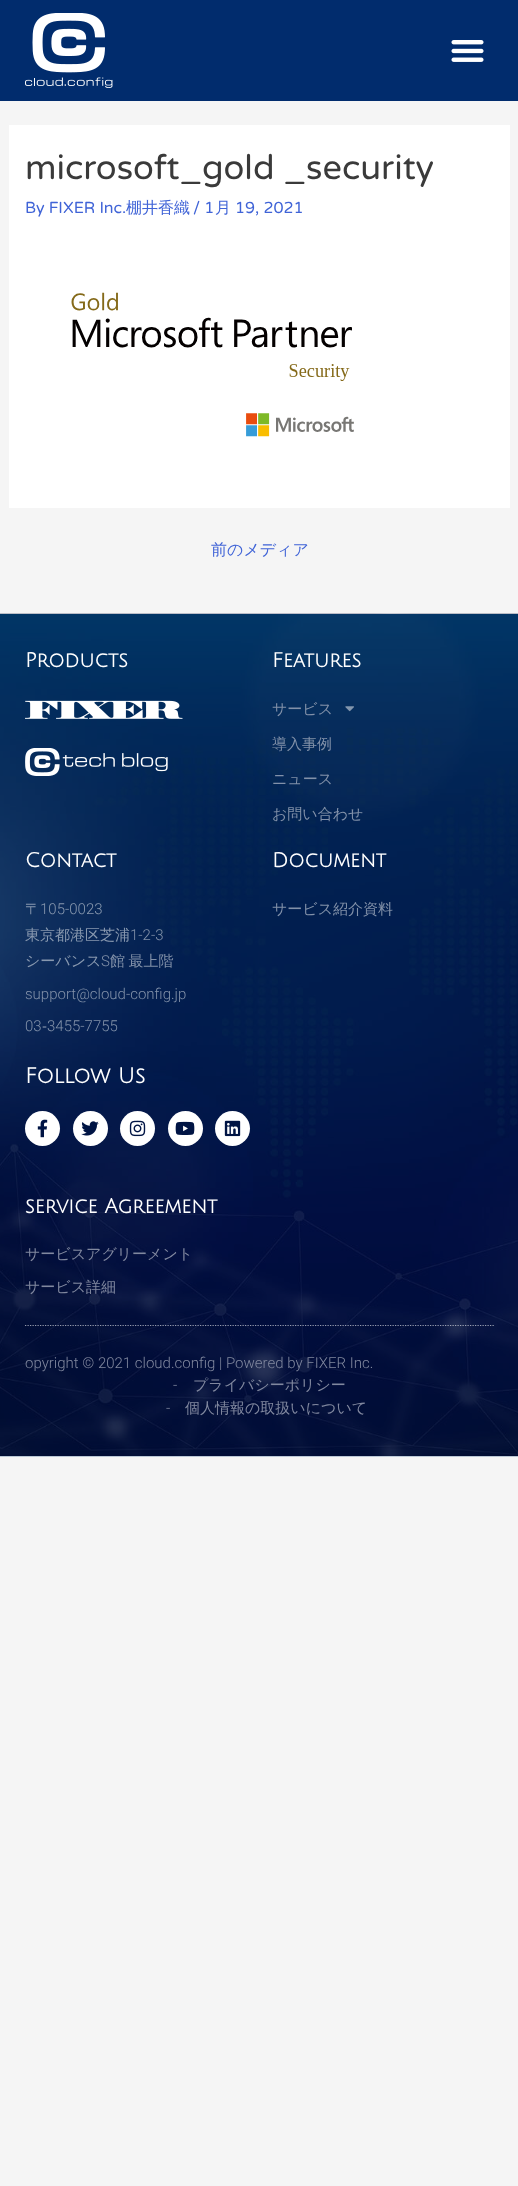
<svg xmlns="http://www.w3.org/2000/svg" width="518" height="2186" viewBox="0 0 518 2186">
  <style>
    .t1 { font: 34.25px Varela Round; fill: #3a3a3a; }
    .t2 { font: 16px Varela Round; fill: #4064d7; }
    .t3 { font: 500 16px WenQuanYi Zen Hei; fill: #4064d7; }
    .t4 { font: bold 20px Julius Sans One; fill: #fff; }
    .t5 { font: 500 15px WenQuanYi Zen Hei; fill: #8291a9; }
    .t6 { font: 500 15px WenQuanYi Zen Hei; fill: #8898af; }
    .t7 { font: 300 15px Roboto; fill: #8898af; }
    .t8 { font: 300 15px Roboto; fill: #8291a9; }
    .t9 { font: 15px Liberation Sans; fill: #8291a9; }
    .t10 { font: bold 21.25px Julius Sans One; fill: #fff; }
    .t11 { font: 500 15px WenQuanYi Zen Hei; fill: #81889f; }
    .t12 { font: 300 15px Roboto; fill: #81889f; }
  </style>
  <rect width="100%" height="100%" fill="#f5f5f5"/>
  <rect x="0" y="0" width="518" height="101" fill="#012c6d"/>
  <image x="25" y="13" width="88" height="75" href="images/1.png"/>
  <image x="451" y="40" width="33" height="22" href="images/2.png"/>
  <rect x="9" y="125" width="501" height="383" fill="#fff"/>
  <text x="25" y="179" class="t1">microsoft_gold _security</text>
  <text x="25" y="213" class="t2">By FIXER Inc.</text>
  <text x="126" y="213" class="t3">棚井香織</text>
  <text x="193" y="213" class="t2">/ 1</text>
  <text x="215" y="213" class="t3">月</text>
  <text x="235" y="213" class="t2">19, 2021</text>
  <image x="71" y="292" width="283" height="145" href="images/3.png"/>
  <text x="211" y="555" class="t3">前のメディア</text>
  <image x="0" y="613" width="518" height="844" href="images/4.png"/>
  <text x="25" y="667" class="t4">Products</text>
  <image x="25" y="700" width="158" height="19" href="images/5.png"/>
  <image x="25" y="748" width="143" height="28" href="images/6.png"/>
  <text x="272" y="667" class="t4">Features</text>
  <text x="272" y="714" class="t5">サービス</text>
  <image x="345" y="706" width="9" height="6" href="images/7.png"/>
  <text x="272" y="749" class="t5">導入事例</text>
  <text x="272" y="784" class="t5">ニュース</text>
  <text x="272" y="819" class="t5">お問い合わせ</text>
  <text x="25" y="867" class="t4">Contact</text>
  <text x="25" y="914" class="t6">〒</text>
  <text x="40" y="914" class="t7">105-0023</text>
  <text x="25" y="940" class="t6">東京都港区芝浦</text>
  <text x="130" y="940" class="t8">1-2-3</text>
  <text x="25" y="966" class="t6">シーバンス</text>
  <text x="101" y="966" class="t8">S</text>
  <text x="110" y="966" word-spacing="-1" class="t5">館 最上階</text>
  <text x="25" y="999" class="t8">support@cloud-config.jp</text>
  <text x="25" y="1031" class="t8">03</text>
  <text x="42" y="1031" class="t9">‐</text>
  <text x="47" y="1031" class="t8">3455-7755</text>
  <text x="272" y="867" class="t4">Document</text>
  <text x="272" y="914" class="t5">サービス紹介資料</text>
  <text x="25" y="1083" class="t10">Follow Us</text>
  <circle cx="42.5" cy="1128.5" r="17.5" fill="#fff"/>
  <image x="37" y="1119" width="11" height="19" href="images/8.png"/>
  <circle cx="90.5" cy="1128.5" r="17.5" fill="#fff"/>
  <image x="81" y="1121" width="18" height="15" href="images/9.png"/>
  <circle cx="137.5" cy="1128.5" r="17.5" fill="#fff"/>
  <image x="129" y="1120" width="17" height="17" href="images/10.png"/>
  <circle cx="185.5" cy="1128.5" r="17.5" fill="#fff"/>
  <image x="175" y="1121" width="20" height="14" href="images/11.png"/>
  <circle cx="232.5" cy="1128.5" r="17.5" fill="#fff"/>
  <image x="224" y="1120" width="17" height="17" href="images/12.png"/>
  <text x="25" y="1213" class="t4">service Agreement</text>
  <text x="25" y="1259" class="t11">サービスアグリーメント</text>
  <text x="25" y="1292" class="t11">サービス詳細</text>
  <path d="M25 1325.5H494" fill="none" stroke="#ffffff96" stroke-width="1.2" stroke-dasharray="1.25 1.25"/>
  <text x="25" y="1368" class="t12">opyright © 2021 cloud.config | Powered by FIXER Inc.</text>
  <text x="173" y="1390" class="t12">-</text>
  <text x="193" y="1390" class="t11">プライバシーポリシー</text>
  <text x="166" y="1413" class="t12">-</text>
  <text x="185" y="1413" class="t11">個人情報の取扱いについて</text>
</svg>
